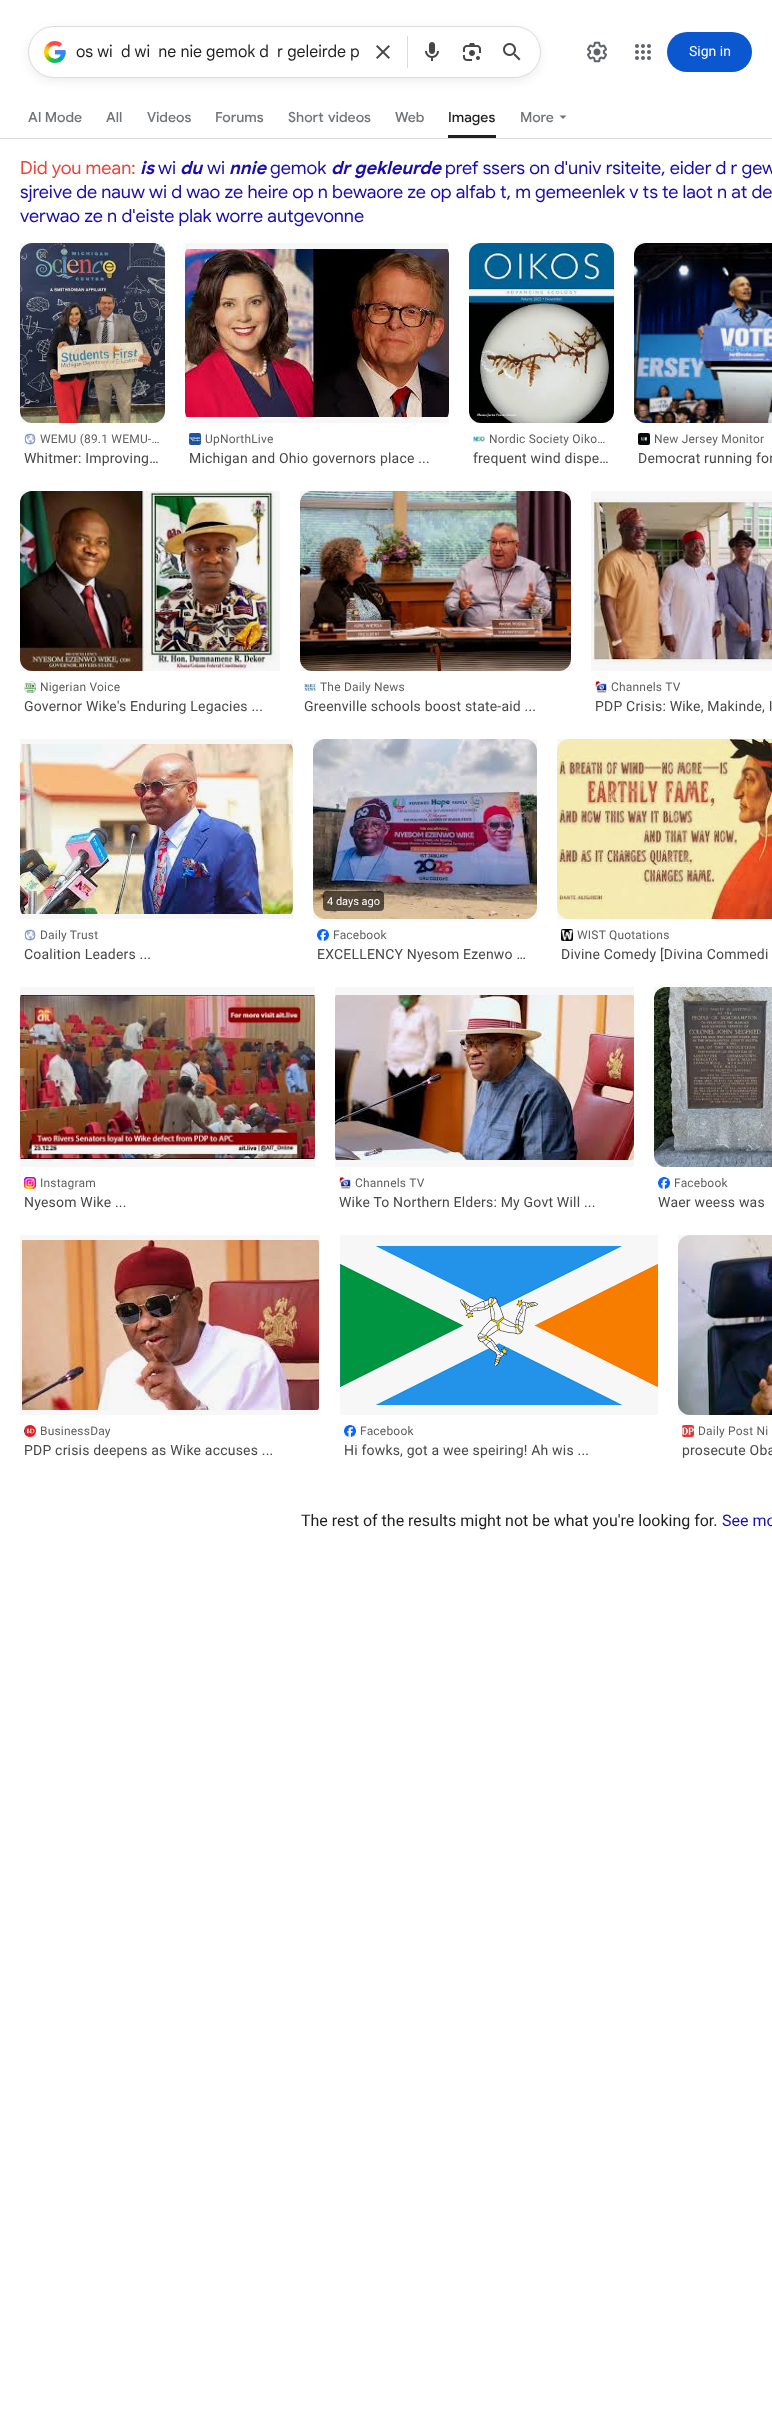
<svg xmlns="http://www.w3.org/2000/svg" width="772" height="2415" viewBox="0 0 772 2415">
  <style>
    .t1 { font: 16px 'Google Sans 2'; fill: #1f1f1f; }
    .t2 { font: 14px Roboto; fill: #fff; }
    .t3 { font: 500 14px Google Sans; fill: #70757a; }
    .t4 { font: 500 14px Google Sans; fill: #1f1f1f; }
    .t5 { font: 18px Google Sans; fill: #ea4335; }
    .t6 { font: italic bold 18px Google Sans; fill: #1a0dab; }
    .t7 { font: 18px Google Sans; fill: #1a0dab; }
    .t8 { font: 12px Roboto; letter-spacing: 0.2px; fill: #5e5e5e; }
    .t9 { font: 14px Roboto; letter-spacing: 0.2px; fill: #474747; }
    .t10 { font: 11px Roboto; fill: #fff; }
    .t11 { font: 16px Roboto; fill: #1f1f1f; }
    .t12 { font: 16px Roboto; fill: #1a0dab; }
  </style>
  <rect width="100%" height="100%" fill="#fff"/>
  <rect x="28" y="29" width="513" height="52" rx="26" fill="#1f1f1f14" filter="blur(5px)"/>
  <rect x="28.5" y="26.5" width="512" height="51" rx="25.5" fill="#fff" stroke="#dadce0"/>
  <image x="44" y="41" width="22" height="22" href="images/1.png"/>
  <text x="76" y="57" class="t1" xml:space="preserve">os wi  d wi  ne nie gemok d  r geleirde p</text>
  <image x="376" y="45" width="14" height="14" href="images/2.png"/>
  <rect x="407" y="36" width="1" height="32" fill="#dadce0"/>
  <image x="425" y="42" width="14" height="19" href="images/3.png"/>
  <image x="463" y="43" width="18" height="18" href="images/4.png"/>
  <image x="503" y="43" width="18" height="18" href="images/5.png"/>
  <image x="587" y="41" width="20" height="22" href="images/6.png"/>
  <image x="635" y="44" width="16" height="16" href="images/7.png"/>
  <rect x="667" y="32" width="85" height="40" rx="20" fill="#0b57d0"/>
  <text x="689" y="56" class="t2">Sign in</text>
  <text x="28" y="122" class="t3">AI Mode</text>
  <text x="106" y="122" class="t3">All</text>
  <text x="147" y="122" class="t3">Videos</text>
  <text x="215" y="122" class="t3">Forums</text>
  <text x="288" y="122" word-spacing="1" class="t3">Short videos</text>
  <text x="395" y="122" class="t3">Web</text>
  <rect x="448" y="135" width="48" height="3" fill="#1f1f1f"/>
  <text x="448" y="122" class="t4">Images</text>
  <text x="520" y="122" class="t3">More</text>
  <path d="M559.5 115.5L563 119L566.5 115.5Z" fill="#70757a"/>
  <rect x="0" y="138" width="772" height="1" fill="#dadce0"/>
  <text x="20" y="174" class="t5">Did you mean:</text>
  <text x="140" y="174" class="t6">is</text>
  <text x="158" y="174" class="t7">wi</text>
  <text x="180" y="174" class="t6">du</text>
  <text x="207" y="174" class="t7">wi</text>
  <text x="229" y="174" class="t6">nnie</text>
  <text x="270" y="174" class="t7">gemok</text>
  <text x="331" y="174" class="t6">dr gekleurde</text>
  <text x="445" y="174" class="t7">pref ssers on d'univ rsiteite, eider d r gew</text>
  <text x="20" y="198" class="t7">sjreive de nauw wi d wao ze heire op n bewaore ze op alfab t, m gemeenlek v ts te laot n at de</text>
  <text x="20" y="222" class="t7">verwao ze n d'eiste plak worre autgevonne</text>
  <image x="20" y="243" width="145" height="180" href="images/8.png"/>
  <rect x="20" y="243" width="145" height="180" fill="#00000008"/>
  <image x="24" y="433" width="12" height="12" href="images/9.png"/>
  <text x="40" y="443" class="t8">WEMU (89.1 WEMU-…</text>
  <text x="24" y="463" class="t9">Whitmer: Improving…</text>
  <image x="185" y="249" width="264" height="168" href="images/10.png"/>
  <rect x="185" y="243" width="264" height="180" fill="#00000008"/>
  <image x="189" y="433" width="12" height="12" href="images/11.png"/>
  <text x="205" y="443" class="t8">UpNorthLive</text>
  <text x="189" y="463" class="t9">Michigan and Ohio governors place ...</text>
  <image x="469" y="243" width="145" height="180" href="images/12.png"/>
  <rect x="469" y="243" width="145" height="180" fill="#00000008"/>
  <image x="473" y="436" width="12" height="6" href="images/13.png"/>
  <text x="489" y="443" class="t8">Nordic Society Oiko…</text>
  <text x="473" y="463" class="t9">frequent wind dispe…</text>
  <image x="634" y="243" width="138" height="180" href="images/14.png"/>
  <rect x="634" y="243" width="138" height="180" fill="#00000008"/>
  <image x="638" y="433" width="12" height="12" href="images/15.png"/>
  <text x="654" y="443" class="t8">New Jersey Monitor</text>
  <text x="638" y="463" class="t9">Democrat running for</text>
  <image x="20" y="491" width="256" height="180" href="images/16.png"/>
  <rect x="20" y="491" width="260" height="180" fill="#00000008"/>
  <image x="24" y="681" width="12" height="12" href="images/17.png"/>
  <text x="40" y="691" class="t8">Nigerian Voice</text>
  <text x="24" y="711" class="t9">Governor Wike's Enduring Legacies ...</text>
  <image x="300" y="491" width="271" height="180" href="images/18.png"/>
  <rect x="300" y="491" width="271" height="180" fill="#00000008"/>
  <image x="304" y="681" width="12" height="12" href="images/19.png"/>
  <text x="320" y="691" class="t8">The Daily News</text>
  <text x="304" y="711" class="t9">Greenville schools boost state-aid ...</text>
  <image x="591" y="499" width="181" height="164" href="images/20.png"/>
  <rect x="591" y="491" width="181" height="180" fill="#00000008"/>
  <image x="595" y="681" width="12" height="12" href="images/21.png"/>
  <text x="611" y="691" class="t8">Channels TV</text>
  <text x="595" y="711" class="t9">PDP Crisis: Wike, Makinde, I</text>
  <image x="20" y="744" width="273" height="170" href="images/22.png"/>
  <rect x="20" y="739" width="273" height="180" fill="#00000008"/>
  <image x="24" y="929" width="12" height="12" href="images/9.png"/>
  <text x="40" y="939" class="t8">Daily Trust</text>
  <text x="24" y="959" class="t9">Coalition Leaders ...</text>
  <image x="313" y="739" width="224" height="180" href="images/23.png"/>
  <rect x="313" y="739" width="224" height="180" fill="#00000008"/>
  <rect x="323" y="891" width="61" height="20" rx="4" fill="#00000099"/>
  <text x="327" y="905" class="t10">4 days ago</text>
  <image x="317" y="929" width="12" height="12" href="images/24.png"/>
  <text x="333" y="939" class="t8">Facebook</text>
  <text x="317" y="959" class="t9">EXCELLENCY Nyesom Ezenwo …</text>
  <image x="557" y="739" width="215" height="180" href="images/25.png"/>
  <rect x="557" y="739" width="215" height="180" fill="#00000008"/>
  <image x="561" y="929" width="12" height="12" href="images/26.png"/>
  <text x="577" y="939" class="t8">WIST Quotations</text>
  <text x="561" y="959" class="t9">Divine Comedy [Divina Commedi</text>
  <image x="20" y="995" width="295" height="164" href="images/27.png"/>
  <rect x="20" y="987" width="295" height="180" fill="#00000008"/>
  <image x="24" y="1177" width="12" height="12" href="images/28.png"/>
  <text x="40" y="1187" class="t8">Instagram</text>
  <text x="24" y="1207" class="t9">Nyesom Wike ...</text>
  <image x="335" y="995" width="299" height="165" href="images/29.png"/>
  <rect x="335" y="987" width="299" height="180" fill="#00000008"/>
  <image x="339" y="1177" width="12" height="12" href="images/30.png"/>
  <text x="355" y="1187" class="t8">Channels TV</text>
  <text x="339" y="1207" class="t9">Wike To Northern Elders: My Govt Will ...</text>
  <image x="654" y="987" width="118" height="180" href="images/31.png"/>
  <rect x="654" y="987" width="118" height="180" fill="#00000008"/>
  <image x="658" y="1177" width="12" height="12" href="images/24.png"/>
  <text x="674" y="1187" class="t8">Facebook</text>
  <text x="658" y="1207" class="t9">Waer weess was</text>
  <image x="22" y="1240" width="297" height="170" href="images/32.png"/>
  <rect x="20" y="1235" width="300" height="180" fill="#00000008"/>
  <image x="24" y="1425" width="12" height="12" href="images/33.png"/>
  <text x="40" y="1435" class="t8">BusinessDay</text>
  <text x="24" y="1455" class="t9">PDP crisis deepens as Wike accuses ...</text>
  <image x="340" y="1246" width="318" height="159" href="images/34.png"/>
  <rect x="340" y="1235" width="318" height="180" fill="#00000008"/>
  <image x="344" y="1425" width="12" height="12" href="images/24.png"/>
  <text x="360" y="1435" class="t8">Facebook</text>
  <text x="344" y="1455" class="t9">Hi fowks, got a wee speiring! Ah wis ...</text>
  <image x="678" y="1235" width="94" height="180" href="images/35.png"/>
  <rect x="678" y="1235" width="94" height="180" fill="#00000008"/>
  <image x="682" y="1425" width="12" height="12" href="images/36.png"/>
  <text x="698" y="1435" class="t8">Daily Post Ni</text>
  <text x="682" y="1455" class="t9">prosecute Oba</text>
  <text x="301" y="1526" class="t11">The rest of the results might not be what you're looking for.</text>
  <text x="722" y="1526" class="t12">See mo</text>
</svg>
